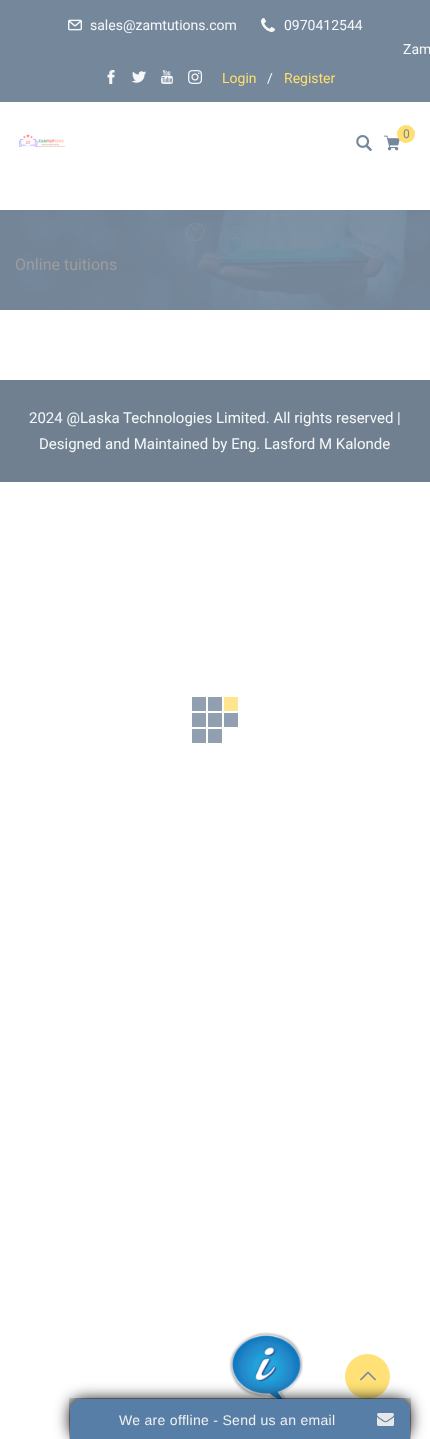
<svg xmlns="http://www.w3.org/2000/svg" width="430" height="1439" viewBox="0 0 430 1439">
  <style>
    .t1 { font: 14px Roboto; fill: #f5f7f8; }
    .t2 { font: 14px Roboto; fill: #ffdf70; }
    .t3 { font: 12px Roboto; fill: #74879b; }
    .t4 { font: 16px Roboto; fill: #9d9d9d; }
    .t5 { font: 15px Roboto; fill: #f5f7f8; }
    .t6 { font: 14px Liberation Sans; letter-spacing: 0.3px; fill: #f1f1f1; }
  </style>
  <rect width="100%" height="100%" fill="#fff"/>
  <rect x="0" y="0" width="430" height="102" fill="#74879b"/>
  <image x="68" y="19" width="14" height="12" href="images/1.png"/>
  <text x="90" y="30" class="t1">sales@zamtutions.com</text>
  <image x="261" y="18" width="14" height="14" href="images/2.png"/>
  <text x="284" y="30" class="t1">0970412544</text>
  <text x="403" y="54" class="t1">Zam</text>
  <image x="107" y="70" width="8" height="14" href="images/3.png"/>
  <image x="132" y="71" width="14" height="12" href="images/4.png"/>
  <image x="161" y="70" width="12" height="14" href="images/5.png"/>
  <image x="188" y="70" width="15" height="14" href="images/6.png"/>
  <text x="222" y="83" class="t2">Login</text>
  <text x="267" y="83" class="t1">/</text>
  <text x="284" y="83" class="t2">Register</text>
  <image x="19" y="134" width="46" height="13" href="images/7.png"/>
  <image x="384" y="135" width="16" height="16" href="images/8.png"/>
  <circle cx="406" cy="134" r="9" fill="#ffdf70"/>
  <text x="403" y="138" class="t3">0</text>
  <image x="356" y="135" width="16" height="16" href="images/9.png"/>
  <image x="0" y="210" width="430" height="100" href="images/10.png"/>
  <text x="15" y="270" class="t4">Online tuitions</text>
  <rect x="0" y="380" width="430" height="102" fill="#718091"/>
  <text x="29" y="423" class="t5">2024 @Laska Technologies Limited. All rights reserved |</text>
  <text x="39" y="449" class="t5">Designed and Maintained by Eng. Lasford M Kalonde</text>
  <rect x="192" y="697" width="14" height="14" fill="#91a0b0"/>
  <rect x="208" y="697" width="14" height="14" fill="#91a0b0"/>
  <rect x="224" y="697" width="14" height="14" fill="#ffe68e"/>
  <rect x="192" y="713" width="14" height="14" fill="#91a0b0"/>
  <rect x="208" y="713" width="14" height="14" fill="#91a0b0"/>
  <rect x="224" y="713" width="14" height="14" fill="#91a0b0"/>
  <rect x="192" y="729" width="14" height="14" fill="#91a0b0"/>
  <rect x="208" y="729" width="14" height="14" fill="#91a0b0"/>
  <circle cx="367.5" cy="1376.5" r="22.5" fill="#ffe177"/>
  <image x="360" y="1371" width="16" height="10" href="images/11.png"/>
  <image x="229" y="1332" width="74" height="67" href="images/12.png"/>
  <rect x="70" y="1399" width="340" height="40" rx="13" fill="#111" filter="blur(7.5px)"/>
  <image x="69" y="1398" width="342" height="41" href="images/13.png"/>
  <path d="M81 1399H399C405 1399 410 1404 410 1410V1439H70V1410C70 1404 75 1399 81 1399Z" fill="#567ea6"/>
  <text x="119" y="1425" class="t6">We are offline - Send us an email</text>
  <image x="377" y="1413" width="17" height="13" href="images/14.png"/>
</svg>
